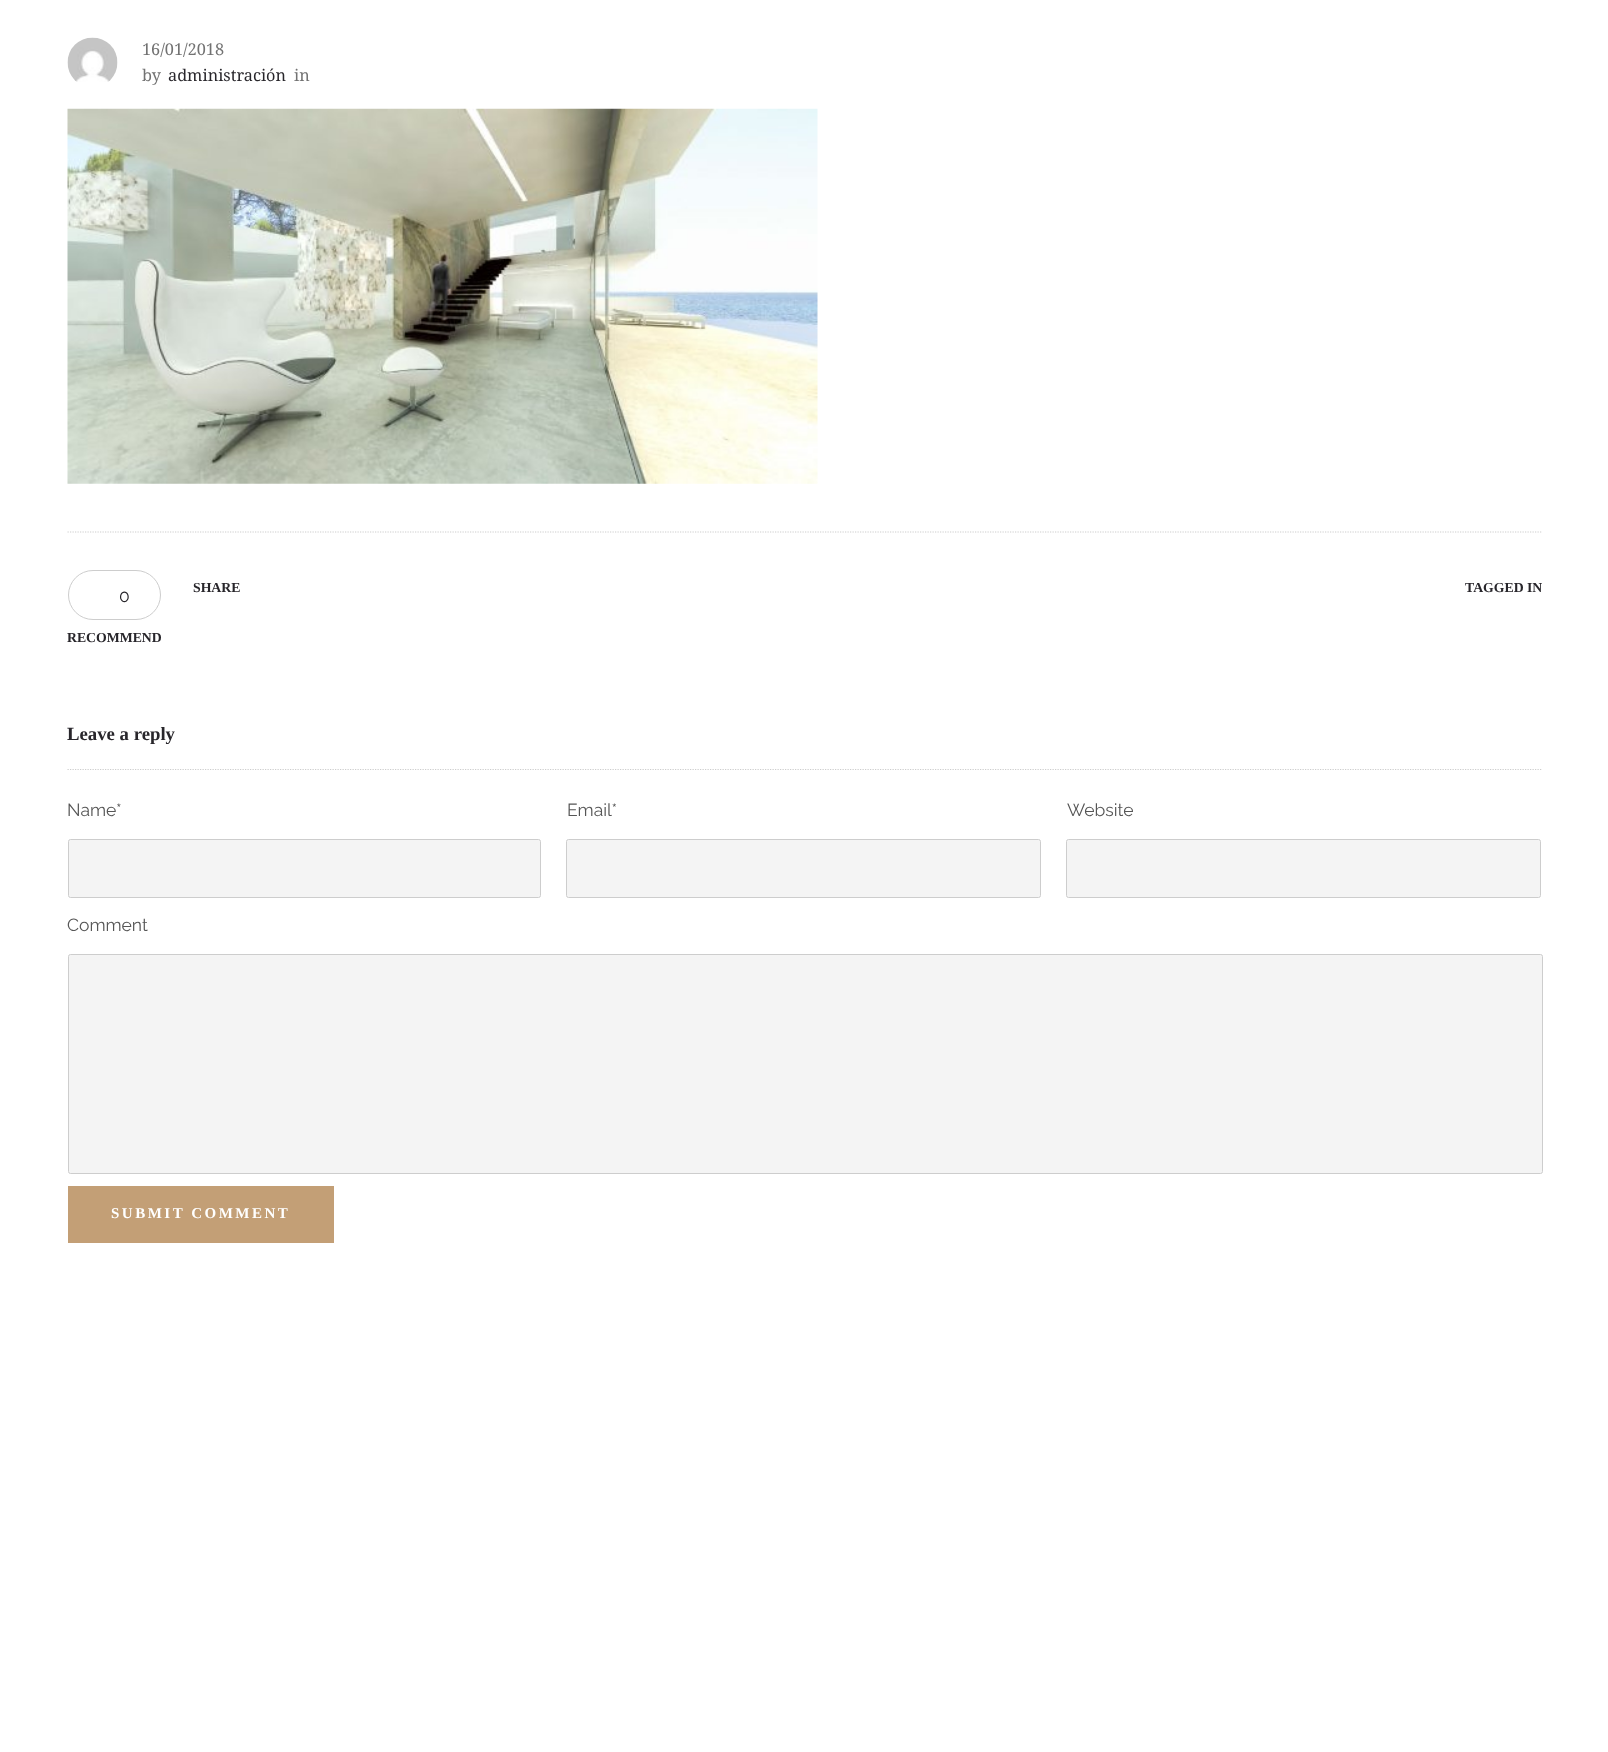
<svg xmlns="http://www.w3.org/2000/svg" width="1608" height="1752" viewBox="0 0 1608 1752">
  <style>
    .t1 { font: 16.25px Droid Serif; fill: #727272; }
    .t2 { font: 16.25px Droid Serif; fill: #28262b; }
    .t3 { font: bold 13.75px Liberation Serif; fill: #28262b; }
    .t4 { font: 17.5px Raleway; fill: #28262b; }
    .t5 { font: bold 18.75px Liberation Serif; fill: #28262b; }
    .t6 { font: 17.5px Raleway; fill: #565656; }
    .t7 { font: bold 15px Liberation Serif; letter-spacing: 2.5px; fill: #fff; }
  </style>
  <rect width="100%" height="100%" fill="#fff"/>
  <image x="67" y="37" width="51" height="45" href="images/1.png"/>
  <text x="142" y="55" class="t1">16/01/2018</text>
  <text x="142" y="81" class="t1">by</text>
  <text x="168" y="81" class="t2">administración</text>
  <text x="294" y="81" class="t1">in</text>
  <image x="67" y="108" width="751" height="376" href="images/2.png"/>
  <path d="M67.5 532H1542.5" fill="none" stroke="#cdcdcd" stroke-width="1.2" stroke-dasharray="1.25 1.25"/>
  <text x="193" y="592" class="t3">SHARE</text>
  <text x="1465" y="592" class="t3">TAGGED IN</text>
  <rect x="68.5" y="570.5" width="92" height="49" rx="24.5" fill="none" stroke="#cdcdcd"/>
  <text x="119" y="602" class="t4">0</text>
  <text x="67" y="642" class="t3">RECOMMEND</text>
  <path d="M67.5 769.5H1542.5" fill="none" stroke="#cdcdcd" stroke-width="1.2" stroke-dasharray="1.25 1.25"/>
  <text x="67" y="740" class="t5">Leave a reply</text>
  <text x="67" y="816" class="t6">Name*</text>
  <rect x="68.5" y="839.5" width="472" height="58" rx="2" fill="#f4f4f4" stroke="#cdcdcd"/>
  <text x="567" y="816" class="t6">Email*</text>
  <rect x="566.5" y="839.5" width="474" height="58" rx="2" fill="#f4f4f4" stroke="#cdcdcd"/>
  <text x="1067" y="816" class="t6">Website</text>
  <rect x="1066.5" y="839.5" width="474" height="58" rx="2" fill="#f4f4f4" stroke="#cdcdcd"/>
  <text x="67" y="931" class="t6">Comment</text>
  <rect x="68.5" y="954.5" width="1474" height="219" rx="2" fill="#f4f4f4" stroke="#cdcdcd"/>
  <rect x="68" y="1186" width="266" height="57" fill="#c39f76"/>
  <text x="111" y="1218" class="t7">SUBMIT COMMENT</text>
</svg>
